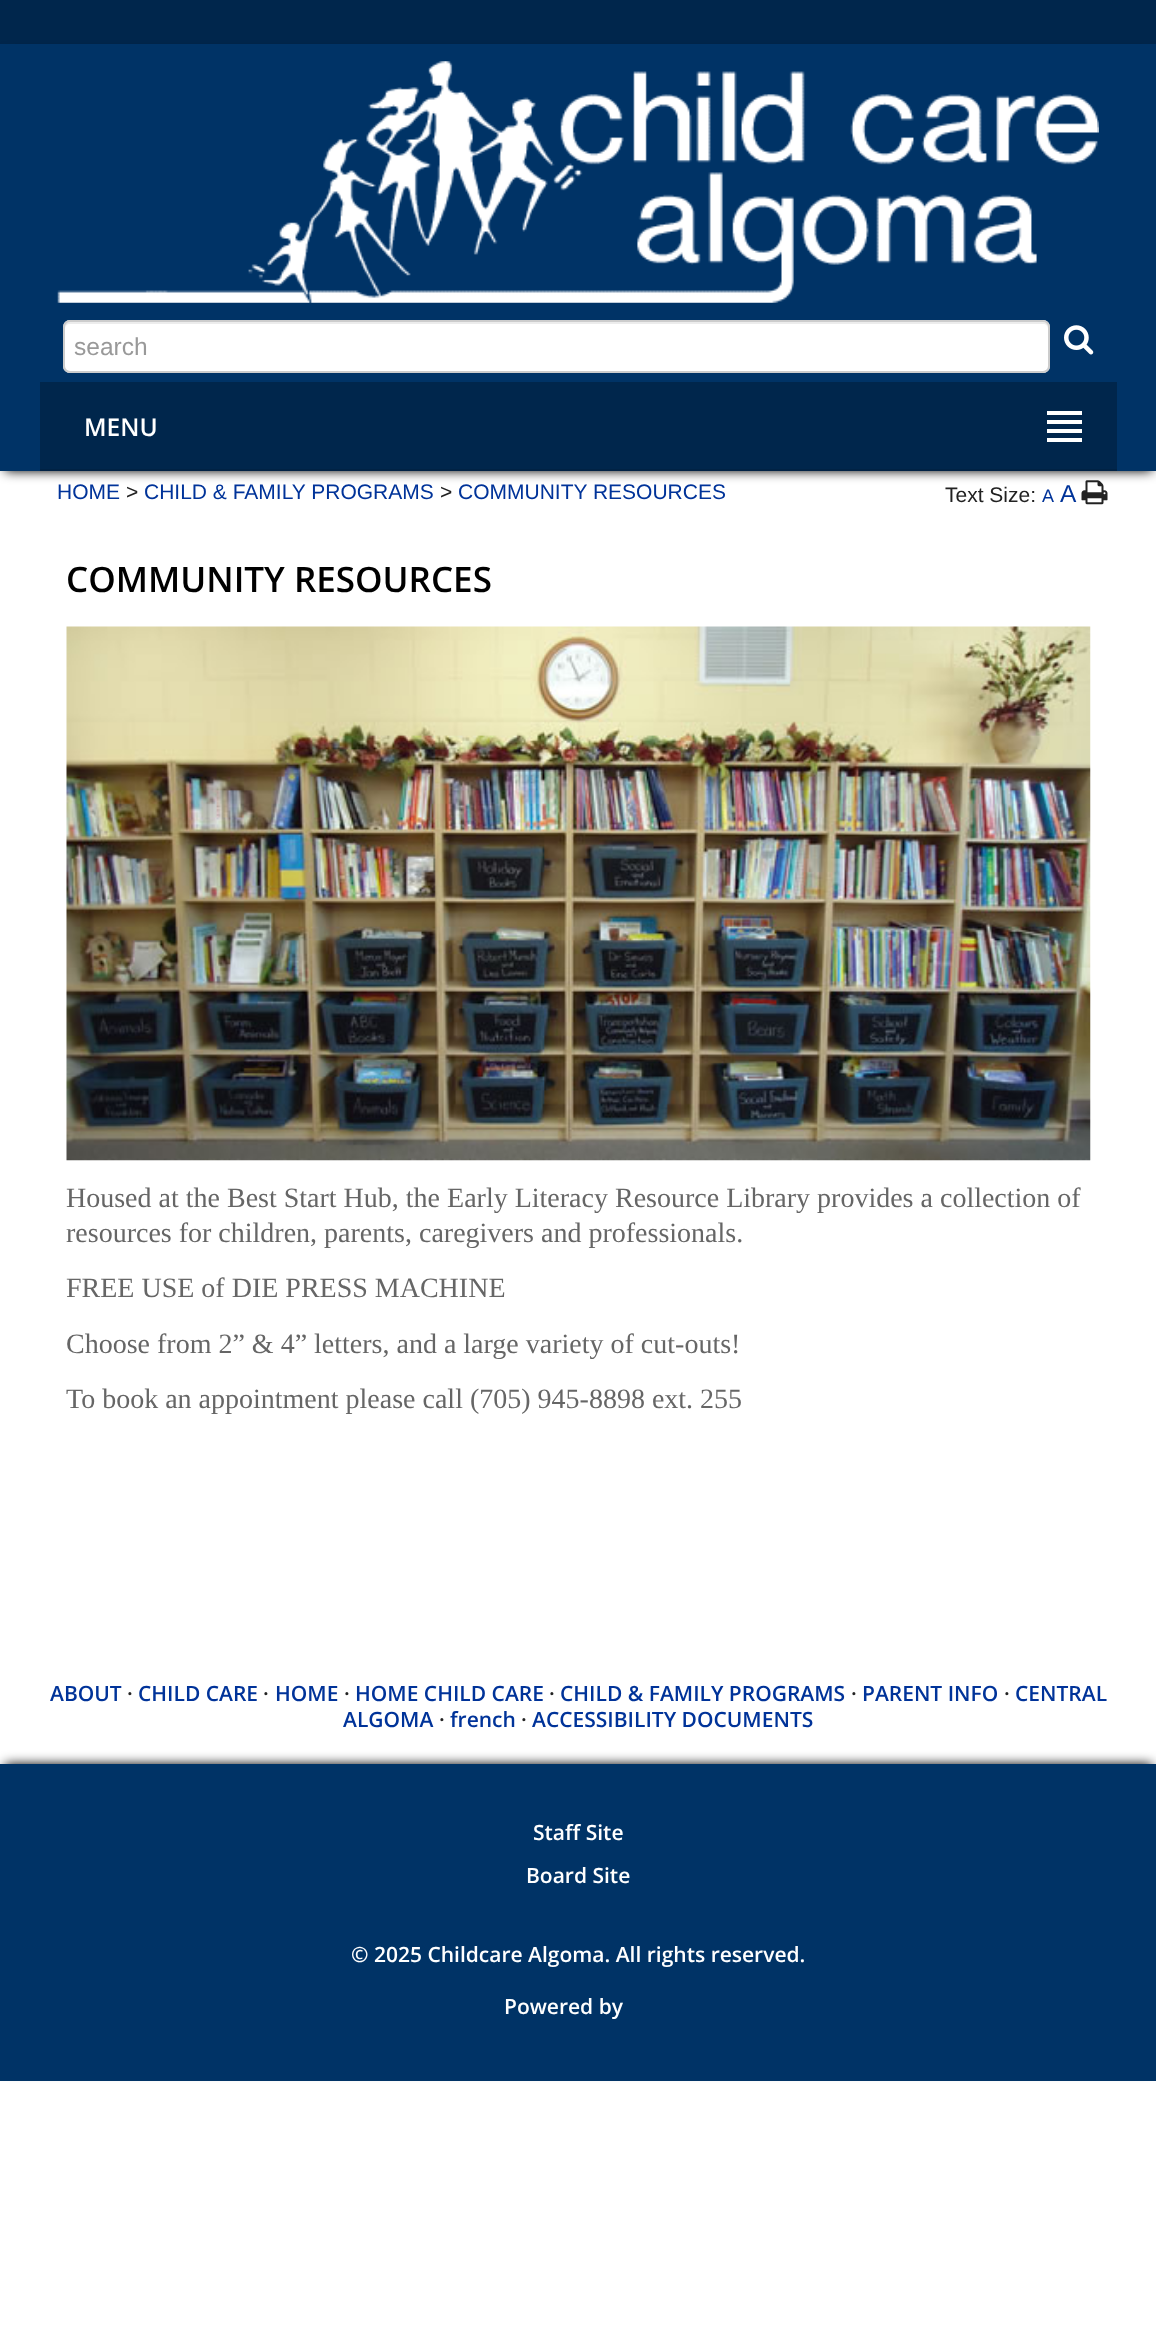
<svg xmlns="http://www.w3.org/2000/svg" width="1156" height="2327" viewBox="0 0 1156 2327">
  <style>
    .t1 { font: 24.5px Liberation Sans; fill: #999; }
    .t2 { font: 600 24.5px Open Sans; fill: #fff; }
    .t3 { font: 21px Liberation Sans; fill: #039; }
    .t4 { font: 21px Liberation Sans; fill: #222; }
    .t5 { font: 18px Liberation Sans; fill: #039; }
    .t6 { font: 24.5px Liberation Sans; fill: #039; }
    .t7 { font: 600 35px Open Sans; fill: #000; }
    .t8 { font: 28px Liberation Serif; fill: #666; }
    .t9 { font: 600 21px Open Sans; fill: #039; }
    .t10 { font: 600 21px Open Sans; fill: #222; }
    .t11 { font: 600 21px Open Sans; fill: #fff; }
  </style>
  <rect width="100%" height="100%" fill="#fff"/>
  <rect x="0" y="0" width="1156" height="44" fill="#00264c"/>
  <image x="1081" y="480" width="27" height="25" href="images/3.png"/>
  <rect x="5" y="54" width="1147" height="417" fill="#000" filter="blur(6px)"/>
  <rect x="0" y="44" width="1156" height="427" fill="#036"/>
  <image x="57" y="61" width="1042" height="242" href="images/1.png"/>
  <rect x="63" y="320" width="987" height="53" rx="7" fill="#fff"/>
  <path d="M70 324H1043C1046 324 1048 326 1048 329V327C1048 324 1046 322 1043 322H70C67 322 65 324 65 327V329C65 326 67 324 70 324Z" fill="#ececec"/>
  <rect x="64" y="321" width="985" height="51" rx="6" fill="none" stroke="#ccc" stroke-width="2"/>
  <text x="74" y="355" class="t1">search</text>
  <image x="1064" y="325" width="30" height="30" href="images/2.png"/>
  <rect x="40" y="382" width="1077" height="87" fill="#00264c"/>
  <rect x="40" y="469" width="1077" height="2" fill="#024"/>
  <text x="84" y="436" class="t2">MENU</text>
  <rect x="1047" y="411" width="35" height="4" fill="#fff"/>
  <rect x="1047" y="420" width="35" height="4" fill="#fff"/>
  <rect x="1047" y="429" width="35" height="4" fill="#fff"/>
  <rect x="1047" y="438" width="35" height="4" fill="#fff"/>
  <text x="57" y="499" class="t3">HOME</text>
  <text x="126" y="499" class="t4">&gt;</text>
  <text x="144" y="499" class="t3">CHILD &amp; FAMILY PROGRAMS</text>
  <text x="440" y="499" class="t4">&gt;</text>
  <text x="458" y="499" class="t3">COMMUNITY RESOURCES</text>
  <text x="945" y="502" class="t4">Text Size:</text>
  <text x="1042" y="502" class="t5">A</text>
  <text x="1060" y="502" class="t6">A</text>
  <text x="66" y="592" class="t7">COMMUNITY RESOURCES</text>
  <image x="66" y="626" width="1025" height="535" href="images/4.png"/>
  <text x="66" y="1207" class="t8">Housed at the Best Start Hub, the Early Literacy Resource Library provides a collection of</text>
  <text x="66" y="1242" class="t8">resources for children, parents, caregivers and professionals.</text>
  <text x="66" y="1297" class="t8">FREE USE of DIE PRESS MACHINE</text>
  <text x="66" y="1353" class="t8">Choose from 2” &amp; 4” letters, and a large variety of cut-outs!</text>
  <text x="66" y="1408" class="t8">To book an appointment please call (705) 945-8898 ext. 255</text>
  <text x="50" y="1701" class="t9">ABOUT</text>
  <text x="127" y="1701" class="t10">·</text>
  <text x="138" y="1701" class="t9">CHILD CARE</text>
  <text x="263" y="1701" class="t10">·</text>
  <text x="275" y="1701" class="t9">HOME</text>
  <text x="344" y="1701" class="t10">·</text>
  <text x="355" y="1701" class="t9">HOME CHILD CARE</text>
  <text x="549" y="1701" class="t10">·</text>
  <text x="560" y="1701" class="t9">CHILD &amp; FAMILY PROGRAMS</text>
  <text x="851" y="1701" class="t10">·</text>
  <text x="862" y="1701" class="t9">PARENT INFO</text>
  <text x="1004" y="1701" class="t10">·</text>
  <text x="1015" y="1701" class="t9">CENTRAL</text>
  <text x="343" y="1727" class="t9">ALGOMA</text>
  <text x="439" y="1727" class="t10">·</text>
  <text x="450" y="1727" class="t9">french</text>
  <text x="521" y="1727" class="t10">·</text>
  <text x="532" y="1727" class="t9">ACCESSIBILITY DOCUMENTS</text>
  <rect x="5" y="1764" width="1147" height="306" fill="#000" filter="blur(6px)"/>
  <rect x="0" y="1764" width="1156" height="317" fill="#036"/>
  <text x="533" y="1840" class="t11">Staff Site</text>
  <text x="526" y="1883" class="t11">Board Site</text>
  <text x="351" y="1962" class="t11">© 2025 Childcare Algoma. All rights reserved.</text>
  <text x="504" y="2014" class="t11">Powered by</text>
</svg>
